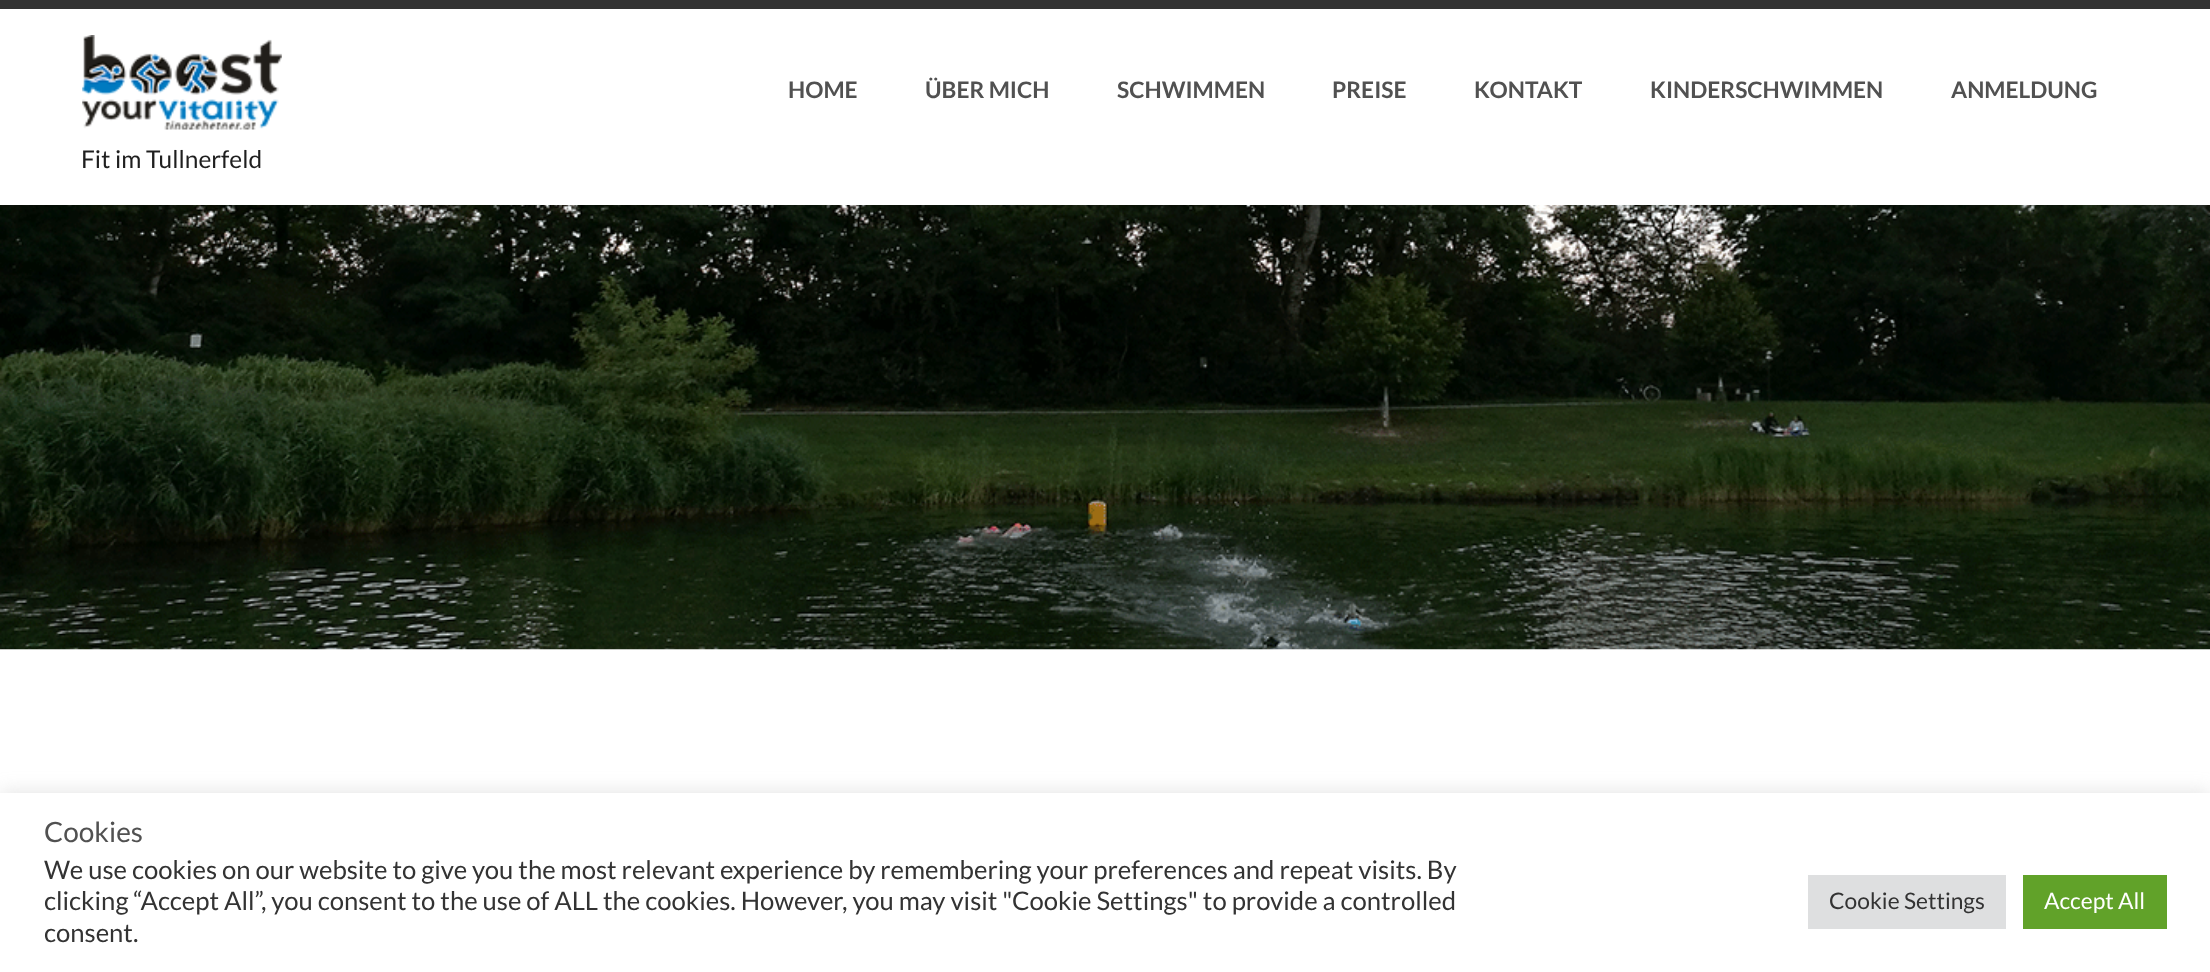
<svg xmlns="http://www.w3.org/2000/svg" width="2210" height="972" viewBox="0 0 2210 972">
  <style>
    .t1 { font: bold 22.75px Lato; fill: #515151; }
    .t2 { font: 24.5px Lato; fill: #1f1f1f; }
    .t3 { font: 28px Lato; fill: #515151; }
    .t4 { font: 25.67px Lato; fill: #333; }
    .t5 { font: 22.75px Lato; fill: #333; }
    .t6 { font: 22.75px Lato; fill: #fff; }
  </style>
  <rect width="100%" height="100%" fill="#fff"/>
  <rect x="0" y="0" width="2210" height="9" fill="#333"/>
  <text x="788" y="98" class="t1">HOME</text>
  <text x="925" y="98" class="t1">ÜBER MICH</text>
  <text x="1117" y="98" class="t1">SCHWIMMEN</text>
  <text x="1332" y="98" class="t1">PREISE</text>
  <text x="1474" y="98" class="t1">KONTAKT</text>
  <text x="1650" y="98" class="t1">KINDERSCHWIMMEN</text>
  <text x="1951" y="98" class="t1">ANMELDUNG</text>
  <image x="82" y="35" width="200" height="95" href="images/1.png"/>
  <text x="81" y="168" class="t2">Fit im Tullnerfeld</text>
  <image x="0" y="205" width="2210" height="445" href="images/2.png"/>
  <rect x="0" y="791" width="2210" height="180" fill="#acabab4d" filter="blur(9px)"/>
  <rect x="0" y="793" width="2210" height="179" fill="#fff"/>
  <text x="44" y="842" class="t3">Cookies</text>
  <text x="44" y="879" class="t4">We use cookies on our website to give you the most relevant experience by remembering your preferences and repeat visits. By</text>
  <text x="44" y="910" class="t4">clicking “Accept All”, you consent to the use of ALL the cookies. However, you may visit "Cookie Settings" to provide a controlled</text>
  <text x="44" y="942" class="t4">consent.</text>
  <rect x="1808" y="875" width="198" height="54" fill="#dedfe0"/>
  <text x="1829" y="909" class="t5">Cookie Settings</text>
  <rect x="2023" y="875" width="144" height="54" fill="#61a229"/>
  <text x="2044" y="909" class="t6">Accept All</text>
</svg>
